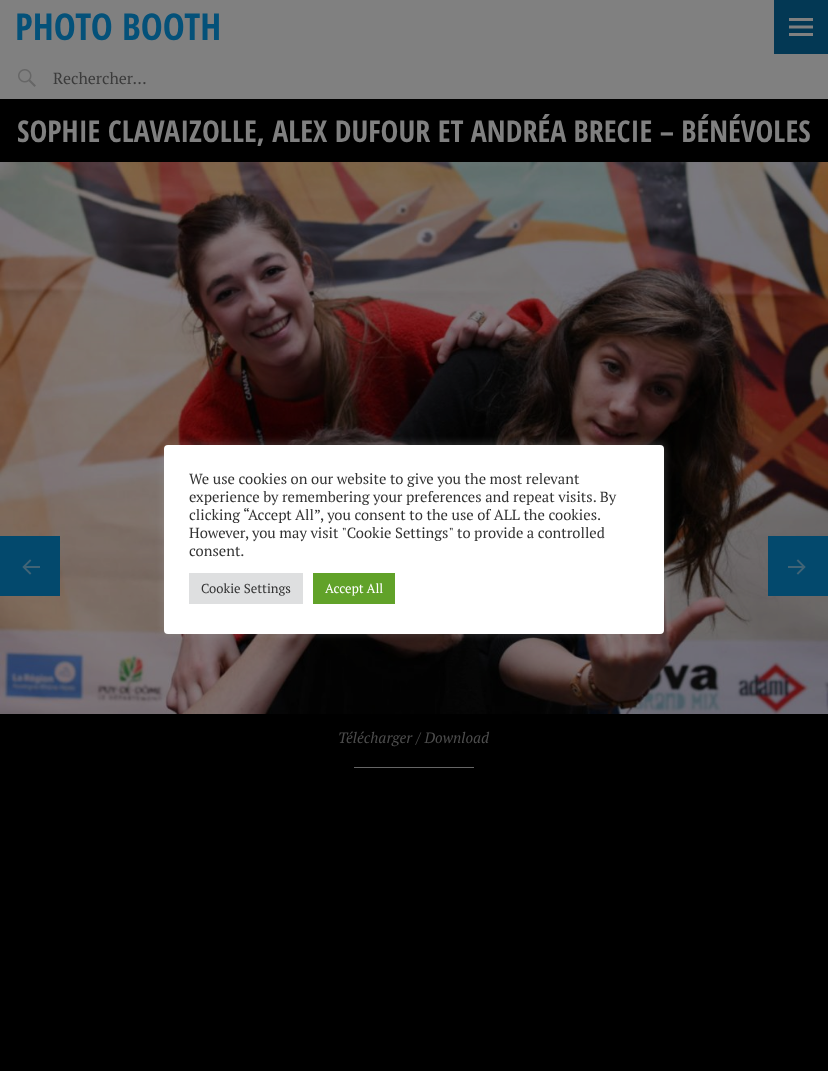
<svg xmlns="http://www.w3.org/2000/svg" width="828" height="1071" viewBox="0 0 828 1071">
  <style>
    .t1 { font: bold 37px Open Sans Condensed; fill: #045179; }
    .t2 { font: 16px PT Serif; fill: #3b3b3b; }
    .t3 { font: bold 30px Open Sans Condensed; fill: #808080; }
    .t4 { font: italic 15px PT Serif; fill: #4d4d4d; }
    .t5 { font: 14.7px PT Serif; fill: #333; }
    .t6 { font: 13px PT Serif; fill: #333; }
    .t7 { font: 13px PT Serif; fill: #fff; }
  </style>
  <rect width="100%" height="100%" fill="#000"/>
  <rect x="0" y="0" width="828" height="99" fill="#808080"/>
  <text x="15" y="40" class="t1">PHOTO BOOTH</text>
  <rect x="774" y="0" width="54" height="54" fill="#033854"/>
  <image x="789" y="18" width="24" height="18" href="images/1.png"/>
  <image x="18" y="69" width="18" height="18" href="images/2.png"/>
  <text x="53" y="84" class="t2">Rechercher…</text>
  <text x="17" y="142" class="t3">SOPHIE CLAVAIZOLLE, ALEX DUFOUR ET ANDRÉA BRECIE – BÉNÉVOLES</text>
  <image x="0" y="162" width="828" height="552" href="images/3.png"/>
  <text x="338" y="743" class="t4">Télécharger / Download</text>
  <rect x="354" y="767" width="120" height="1" fill="#666"/>
  <rect x="0" y="536" width="60" height="60" fill="#03496d"/>
  <image x="22" y="559" width="18" height="16" href="images/4.png"/>
  <rect x="768" y="536" width="60" height="60" fill="#03496d"/>
  <image x="788" y="559" width="18" height="16" href="images/5.png"/>
  <rect x="164" y="444" width="500" height="189" rx="4" fill="#acabab4d" filter="blur(5px)"/>
  <rect x="164" y="445" width="500" height="189" rx="4" fill="#fff"/>
  <text x="189" y="484" class="t5">We use cookies on our website to give you the most relevant</text>
  <text x="189" y="502" class="t5">experience by remembering your preferences and repeat visits. By</text>
  <text x="189" y="520" class="t5">clicking “Accept All”, you consent to the use of ALL the cookies.</text>
  <text x="189" y="538" class="t5">However, you may visit "Cookie Settings" to provide a controlled</text>
  <text x="189" y="556" class="t5">consent.</text>
  <rect x="189" y="573" width="114" height="31" fill="#dedfe0"/>
  <text x="201" y="593" class="t6">Cookie Settings</text>
  <rect x="313" y="573" width="82" height="31" fill="#61a229"/>
  <text x="325" y="593" class="t7">Accept All</text>
</svg>
